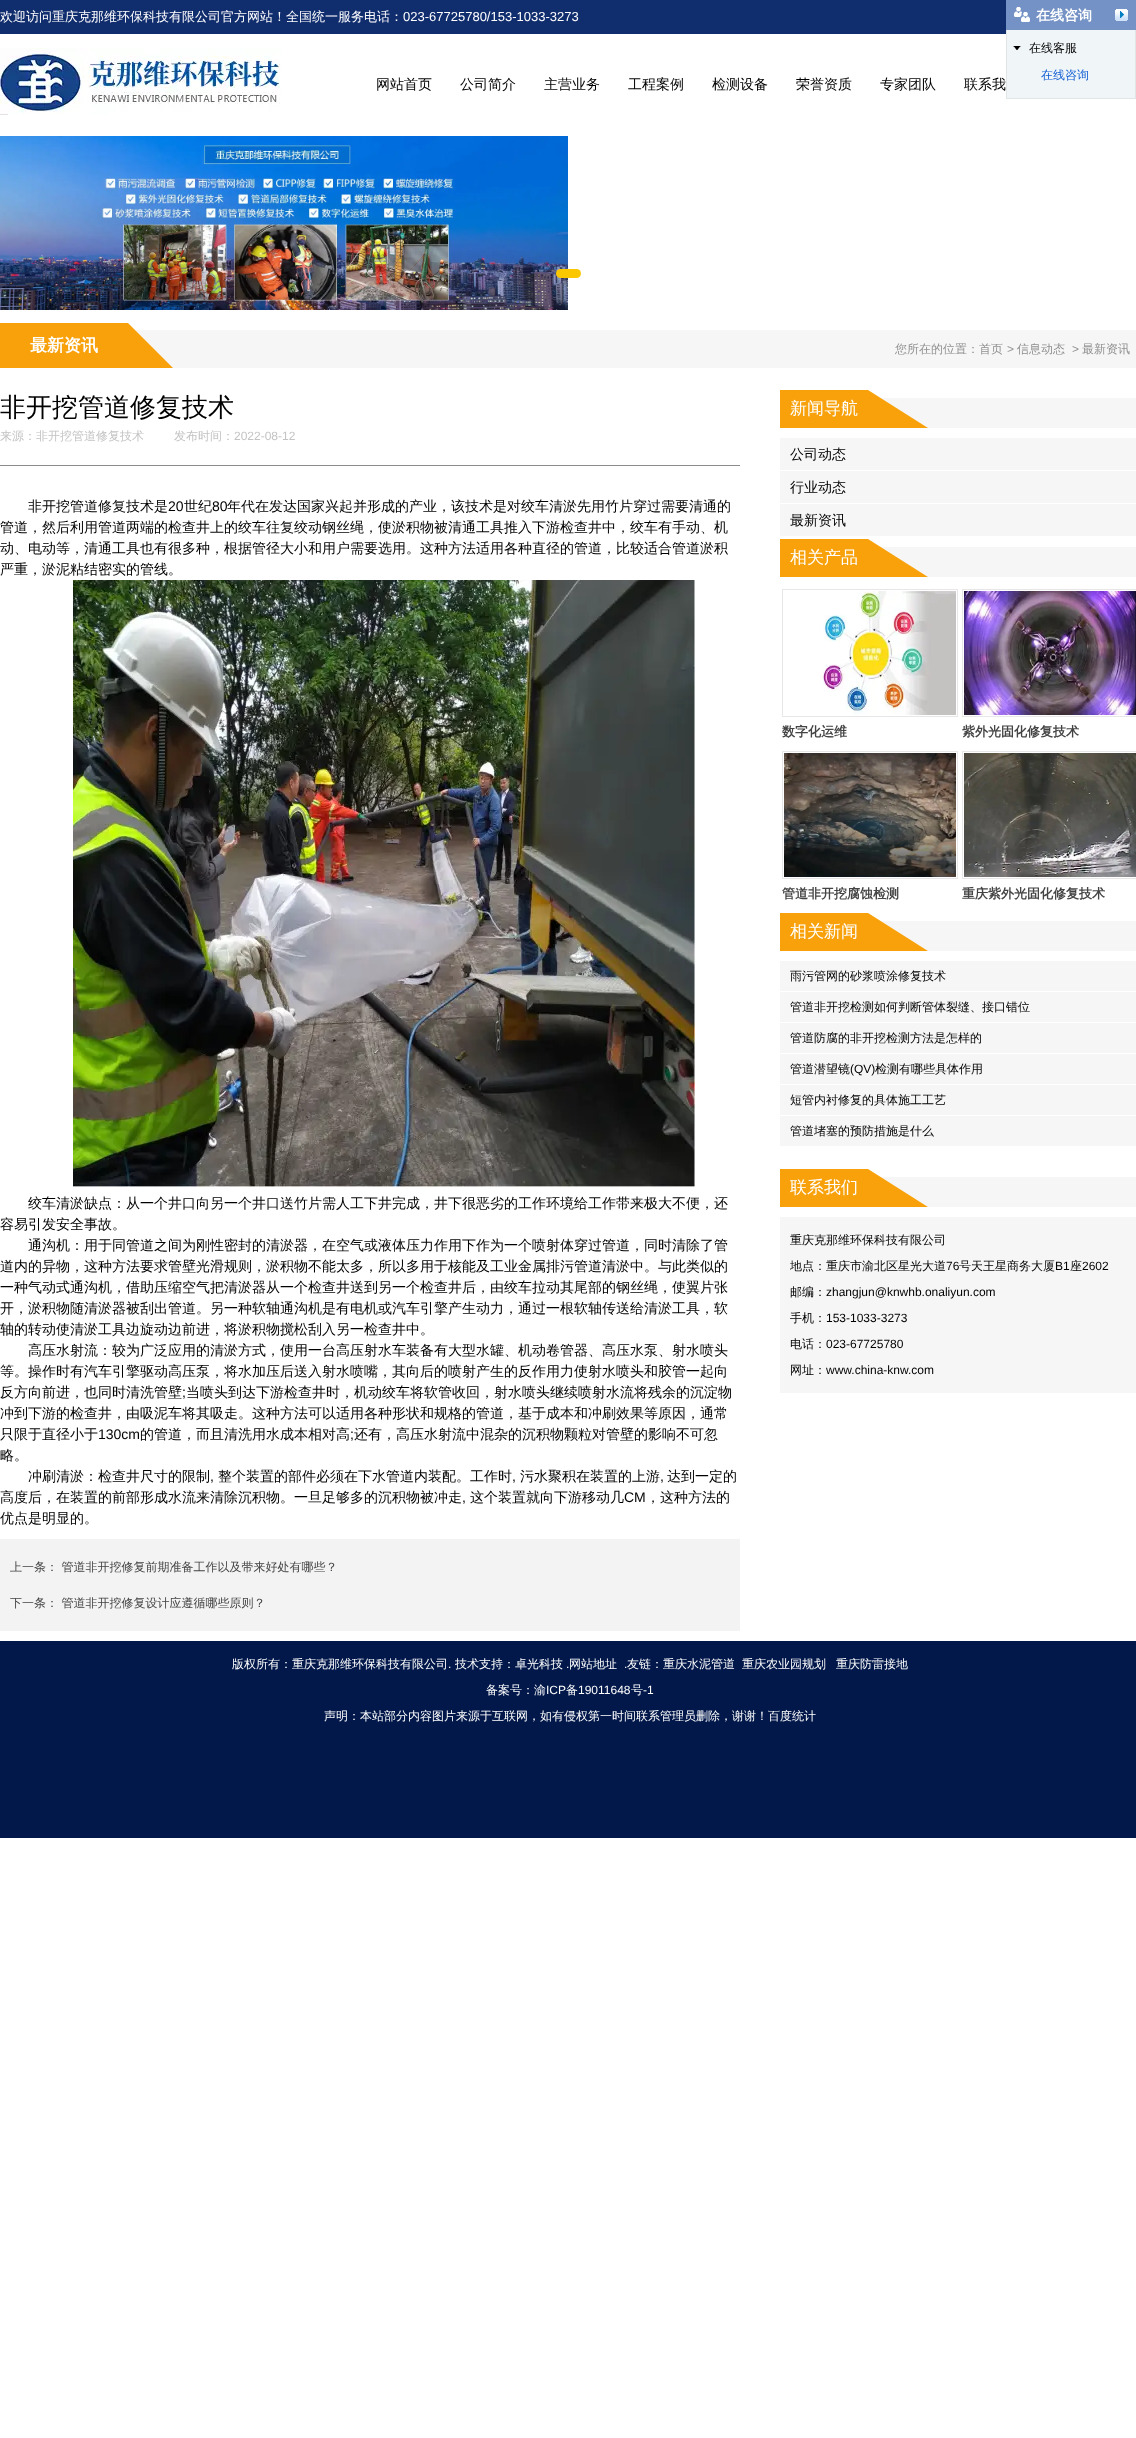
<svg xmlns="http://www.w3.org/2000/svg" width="1136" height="2438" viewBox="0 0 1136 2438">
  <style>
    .t1 { font: 500 13px WenQuanYi Zen Hei; fill: #fff; }
    .t2 { font: 13px Liberation Sans; fill: #fff; }
    .t3 { font: bold 14px WenQuanYi Zen Hei; fill: #fff; }
    .t4 { font: 500 12px WenQuanYi Zen Hei; fill: #000; }
    .t5 { font: 500 12px WenQuanYi Zen Hei; fill: #0f5dd3; }
    .t6 { font: 500 14px WenQuanYi Zen Hei; fill: #000; }
    .t7 { font: bold 17px WenQuanYi Zen Hei; fill: #fff; }
    .t8 { font: 500 12px WenQuanYi Zen Hei; fill: #909090; }
    .t9 { font: 12px Liberation Sans; fill: #909090; }
    .t10 { font: 500 26px WenQuanYi Zen Hei; fill: #000; }
    .t11 { font: 500 12px WenQuanYi Zen Hei; fill: #c3c3c3; }
    .t12 { font: 12px Liberation Sans; fill: #c3c3c3; }
    .t13 { font: 14px Liberation Sans; fill: #000; }
    .t14 { font: 500 12px WenQuanYi Zen Hei; fill: #444; }
    .t15 { font: 500 17px WenQuanYi Zen Hei; fill: #fff; }
    .t16 { font: bold 13px WenQuanYi Zen Hei; fill: #444; }
    .t17 { font: 12px Liberation Sans; fill: #000; }
    .t18 { font: 500 12px WenQuanYi Zen Hei; fill: #fff; }
    .t19 { font: 12px Liberation Sans; fill: #fff; }
  </style>
  <rect width="100%" height="100%" fill="#fff"/>
  <rect x="0" y="0" width="1006" height="34" fill="#102d6e"/>
  <text x="0" y="21" class="t1">欢迎访问重庆克那维环保科技有限公司官方网站！全国统一服务电话：</text>
  <text x="403" y="21" class="t2">023-67725780/153-1033-3273</text>
  <rect x="1006" y="0" width="130" height="30" fill="#7492c5"/>
  <image x="1014" y="7" width="16" height="15" href="images/1.png"/>
  <text x="1036" y="20" class="t3">在线咨询</text>
  <image x="1115" y="9" width="13" height="12" href="images/2.png"/>
  <rect x="1007" y="30" width="128" height="68" fill="#f0f5f8"/>
  <rect x="1135" y="30" width="1" height="69" fill="#e2e5e6"/>
  <rect x="1006" y="98" width="130" height="1" fill="#e2e5e6"/>
  <rect x="1006" y="30" width="1" height="69" fill="#e2e5e6"/>
  <image x="1013" y="46" width="8" height="4" href="images/3.png"/>
  <text x="1029" y="52" class="t4">在线客服</text>
  <text x="1041" y="79" class="t5">在线咨询</text>
  <image x="0" y="48" width="281" height="67" href="images/4.png"/>
  <text x="376" y="89" class="t6">网站首页</text>
  <text x="460" y="89" class="t6">公司简介</text>
  <text x="544" y="89" class="t6">主营业务</text>
  <text x="628" y="89" class="t6">工程案例</text>
  <text x="712" y="89" class="t6">检测设备</text>
  <text x="796" y="89" class="t6">荣誉资质</text>
  <text x="880" y="89" class="t6">专家团队</text>
  <text x="964" y="89" class="t6">联系我</text>
  <image x="0" y="136" width="568" height="174" href="images/5.png"/>
  <rect x="556" y="269" width="25" height="9" rx="4.5" fill="#fac700"/>
  <rect x="135" y="330" width="1001" height="38" fill="#f7f6f6"/>
  <rect x="0" y="323" width="128" height="45" fill="#f8a10a"/>
  <text x="30" y="351" class="t7">最新资讯</text>
  <path d="M173 368H128V323Z" fill="#f8a10a"/>
  <text x="895" y="353" class="t8">您所在的位置：首页</text>
  <text x="1007" y="353" class="t9">&gt;</text>
  <text x="1017" y="353" class="t8">信息动态</text>
  <text x="1072" y="353" class="t9">&gt;</text>
  <text x="1082" y="353" class="t8">最新资讯</text>
  <rect x="0" y="465" width="740" height="1" fill="#8c8c8c"/>
  <text x="0" y="416" class="t10">非开挖管道修复技术</text>
  <text x="0" y="440" class="t11">来源：非开挖管道修复技术</text>
  <text x="174" y="440" class="t11">发布时间：</text>
  <text x="234" y="440" class="t12">2022-08-12</text>
  <text x="28" y="511" class="t6">非开挖管道修复技术是</text>
  <text x="168" y="511" class="t13">20</text>
  <text x="184" y="511" class="t6">世纪</text>
  <text x="212" y="511" class="t13">80</text>
  <text x="227" y="511" class="t6">年代在发达国家兴起并形成的产业，该技术是对绞车清淤先用竹片穿过需要清通的</text>
  <text x="0" y="532" class="t6">管道，然后利用管道两端的检查井上的绞车往复绞动钢丝绳，使淤积物被清通工具推入下游检查井中，绞车有手动、机</text>
  <text x="0" y="553" class="t6">动、电动等，清通工具也有很多种，根据管径大小和用户需要选用。这种方法适用各种直径的管道，比较适合管道淤积</text>
  <text x="0" y="574" class="t6">严重，淤泥粘结密实的管线。</text>
  <image x="73" y="580" width="622" height="607" href="images/6.png"/>
  <text x="28" y="1208" class="t6">绞车清淤缺点：从一个井口向另一个井口送竹片需人工下井完成，井下很恶劣的工作环境给工作带来极大不便，还</text>
  <text x="0" y="1229" class="t6">容易引发安全事故。</text>
  <text x="28" y="1250" class="t6">通沟机：用于同管道之间为刚性密封的清淤器，在空气或液体压力作用下作为一个喷射体穿过管道，同时清除了管</text>
  <text x="0" y="1271" class="t6">道内的异物，这种方法要求管壁光滑规则，淤积物不能太多，所以多用于核能及工业金属排污管道清淤中。与此类似的</text>
  <text x="0" y="1292" class="t6">一种气动式通沟机，借助压缩空气把清淤器从一个检查井送到另一个检查井后，由绞车拉动其尾部的钢丝绳，使翼片张</text>
  <text x="0" y="1313" class="t6">开，淤积物随清淤器被刮出管道。另一种软轴通沟机是有电机或汽车引擎产生动力，通过一根软轴传送给清淤工具，软</text>
  <text x="0" y="1334" class="t6">轴的转动使清淤工具边旋动边前进，将淤积物搅松刮入另一检查井中。</text>
  <text x="28" y="1355" class="t6">高压水射流：较为广泛应用的清淤方式，使用一台高压射水车装备有大型水罐、机动卷管器、高压水泵、射水喷头</text>
  <text x="0" y="1376" class="t6">等。操作时有汽车引擎驱动高压泵，将水加压后送入射水喷嘴，其向后的喷射产生的反作用力使射水喷头和胶管一起向</text>
  <text x="0" y="1397" class="t6">反方向前进，也同时清洗管壁</text>
  <text x="182" y="1397" class="t13">;</text>
  <text x="186" y="1397" class="t6">当喷头到达下游检查井时，机动绞车将软管收回，射水喷头继续喷射水流将残余的沉淀物</text>
  <text x="0" y="1418" class="t6">冲到下游的检查井，由吸泥车将其吸走。这种方法可以适用各种形状和规格的管道，基于成本和冲刷效果等原因，通常</text>
  <text x="0" y="1439" class="t6">只限于直径小于</text>
  <text x="98" y="1439" class="t13">130cm</text>
  <text x="140" y="1439" class="t6">的管道，而且清洗用水成本相对高</text>
  <text x="350" y="1439" class="t13">;</text>
  <text x="354" y="1439" class="t6">还有，高压水射流中混杂的沉积物颗粒对管壁的影响不可忽</text>
  <text x="0" y="1460" class="t6">略。</text>
  <text x="28" y="1481" class="t6">冲刷清淤：检查井尺寸的限制</text>
  <text x="210" y="1481" class="t13">,</text>
  <text x="218" y="1481" class="t6">整个装置的部件必须在下水管道内装配。工作时</text>
  <text x="512" y="1481" class="t13">,</text>
  <text x="520" y="1481" class="t6">污水聚积在装置的上游</text>
  <text x="660" y="1481" class="t13">,</text>
  <text x="667" y="1481" class="t6">达到一定的</text>
  <text x="0" y="1502" class="t6">高度后，在装置的前部形成水流来清除沉积物。一旦足够多的沉积物被冲走</text>
  <text x="462" y="1502" class="t13">,</text>
  <text x="470" y="1502" class="t6">这个装置就向下游移动几</text>
  <text x="624" y="1502" class="t13">CM</text>
  <text x="646" y="1502" class="t6">，这种方法的</text>
  <text x="0" y="1523" class="t6">优点是明显的。</text>
  <rect x="0" y="1539" width="740" height="92" fill="#f3f3f3"/>
  <text x="10" y="1571" class="t14">上一条： 管道非开挖修复前期准备工作以及带来好处有哪些？</text>
  <text x="10" y="1607" class="t14">下一条： 管道非开挖修复设计应遵循哪些原则？</text>
  <rect x="880" y="398" width="256" height="30" fill="#f7f6f6"/>
  <rect x="780" y="390" width="88" height="38" fill="#f8a10a"/>
  <text x="790" y="414" class="t15">新闻导航</text>
  <path d="M928 428H868V390Z" fill="#f8a10a"/>
  <rect x="780" y="438" width="356" height="32" fill="#f7f6f6"/>
  <text x="790" y="459" class="t6">公司动态</text>
  <rect x="780" y="471" width="356" height="32" fill="#f7f6f6"/>
  <text x="790" y="492" class="t6">行业动态</text>
  <rect x="780" y="504" width="356" height="32" fill="#f7f6f6"/>
  <text x="790" y="525" class="t6">最新资讯</text>
  <rect x="880" y="547" width="256" height="30" fill="#f7f6f6"/>
  <rect x="780" y="539" width="88" height="38" fill="#f8a10a"/>
  <text x="790" y="563" class="t15">相关产品</text>
  <path d="M928 577H868V539Z" fill="#f8a10a"/>
  <rect x="782.5" y="589.5" width="175" height="127" fill="none" stroke="#e8e6e6"/>
  <image x="820" y="591" width="136" height="124" href="images/7.png"/>
  <text x="782" y="736" class="t16">数字化运维</text>
  <rect x="962.5" y="589.5" width="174" height="127" fill="none" stroke="#e8e6e6"/>
  <image x="964" y="591" width="172" height="124" href="images/8.png"/>
  <text x="962" y="736" class="t16">紫外光固化修复技术</text>
  <rect x="782.5" y="751.5" width="175" height="127" fill="none" stroke="#e8e6e6"/>
  <image x="784" y="753" width="172" height="124" href="images/9.png"/>
  <text x="782" y="898" class="t16">管道非开挖腐蚀检测</text>
  <rect x="962.5" y="751.5" width="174" height="127" fill="none" stroke="#e8e6e6"/>
  <image x="964" y="753" width="172" height="124" href="images/10.png"/>
  <text x="962" y="898" class="t16">重庆紫外光固化修复技术</text>
  <rect x="880" y="921" width="256" height="30" fill="#f7f6f6"/>
  <rect x="780" y="913" width="88" height="38" fill="#f8a10a"/>
  <text x="790" y="937" class="t15">相关新闻</text>
  <path d="M928 951H868V913Z" fill="#f8a10a"/>
  <rect x="780" y="961" width="356" height="30" fill="#f7f6f6"/>
  <text x="790" y="980" class="t4">雨污管网的砂浆喷涂修复技术</text>
  <rect x="780" y="992" width="356" height="30" fill="#f7f6f6"/>
  <text x="790" y="1011" class="t4">管道非开挖检测如何判断管体裂缝、接口错位</text>
  <rect x="780" y="1023" width="356" height="30" fill="#f7f6f6"/>
  <text x="790" y="1042" class="t4">管道防腐的非开挖检测方法是怎样的</text>
  <rect x="780" y="1054" width="356" height="30" fill="#f7f6f6"/>
  <text x="790" y="1073" class="t4">管道潜望镜</text>
  <text x="850" y="1073" class="t17">(QV)</text>
  <text x="875" y="1073" class="t4">检测有哪些具体作用</text>
  <rect x="780" y="1085" width="356" height="30" fill="#f7f6f6"/>
  <text x="790" y="1104" class="t4">短管内衬修复的具体施工工艺</text>
  <rect x="780" y="1116" width="356" height="30" fill="#f7f6f6"/>
  <text x="790" y="1135" class="t4">管道堵塞的预防措施是什么</text>
  <rect x="880" y="1177" width="256" height="30" fill="#f7f6f6"/>
  <rect x="780" y="1169" width="88" height="38" fill="#f8a10a"/>
  <text x="790" y="1193" class="t15">联系我们</text>
  <path d="M928 1207H868V1169Z" fill="#f8a10a"/>
  <rect x="780" y="1217" width="356" height="176" fill="#f7f6f6"/>
  <text x="790" y="1244" class="t4">重庆克那维环保科技有限公司</text>
  <text x="790" y="1270" class="t4">地点：重庆市渝北区星光大道</text>
  <text x="946" y="1270" class="t17">76</text>
  <text x="959" y="1270" class="t4">号天王星商务大厦</text>
  <text x="1055" y="1270" class="t17">B1</text>
  <text x="1070" y="1270" class="t4">座</text>
  <text x="1082" y="1270" class="t17">2602</text>
  <text x="790" y="1296" class="t4">邮编：</text>
  <text x="826" y="1296" class="t17">zhangjun@knwhb.onaliyun.com</text>
  <text x="790" y="1322" class="t4">手机：</text>
  <text x="826" y="1322" class="t17">153-1033-3273</text>
  <text x="790" y="1348" class="t4">电话：</text>
  <text x="826" y="1348" class="t17">023-67725780</text>
  <text x="790" y="1374" class="t4">网址：</text>
  <text x="826" y="1374" class="t17">www.china-knw.com</text>
  <rect x="0" y="1641" width="1136" height="197" fill="#02184a"/>
  <text x="232" y="1668" class="t18">版权所有：重庆克那维环保科技有限公司</text>
  <text x="448" y="1668" class="t19">.</text>
  <text x="455" y="1668" class="t18">技术支持：卓光科技</text>
  <text x="566" y="1668" class="t19">.</text>
  <text x="569" y="1668" class="t18">网站地址</text>
  <text x="624" y="1668" class="t19">.</text>
  <text x="627" y="1668" class="t18">友链：重庆水泥管道</text>
  <text x="742" y="1668" class="t18">重庆农业园规划</text>
  <text x="836" y="1668" class="t18">重庆防雷接地</text>
  <text x="486" y="1694" class="t18">备案号：渝</text>
  <text x="546" y="1694" class="t19">ICP</text>
  <text x="566" y="1694" class="t18">备</text>
  <text x="578" y="1694" class="t19">19011648</text>
  <text x="631" y="1694" class="t18">号</text>
  <text x="643" y="1694" class="t19">-1</text>
  <text x="324" y="1720" class="t18">声明：本站部分内容图片来源于互联网，如有侵权第一时间联系管理员删除，谢谢！百度统计</text>
</svg>
